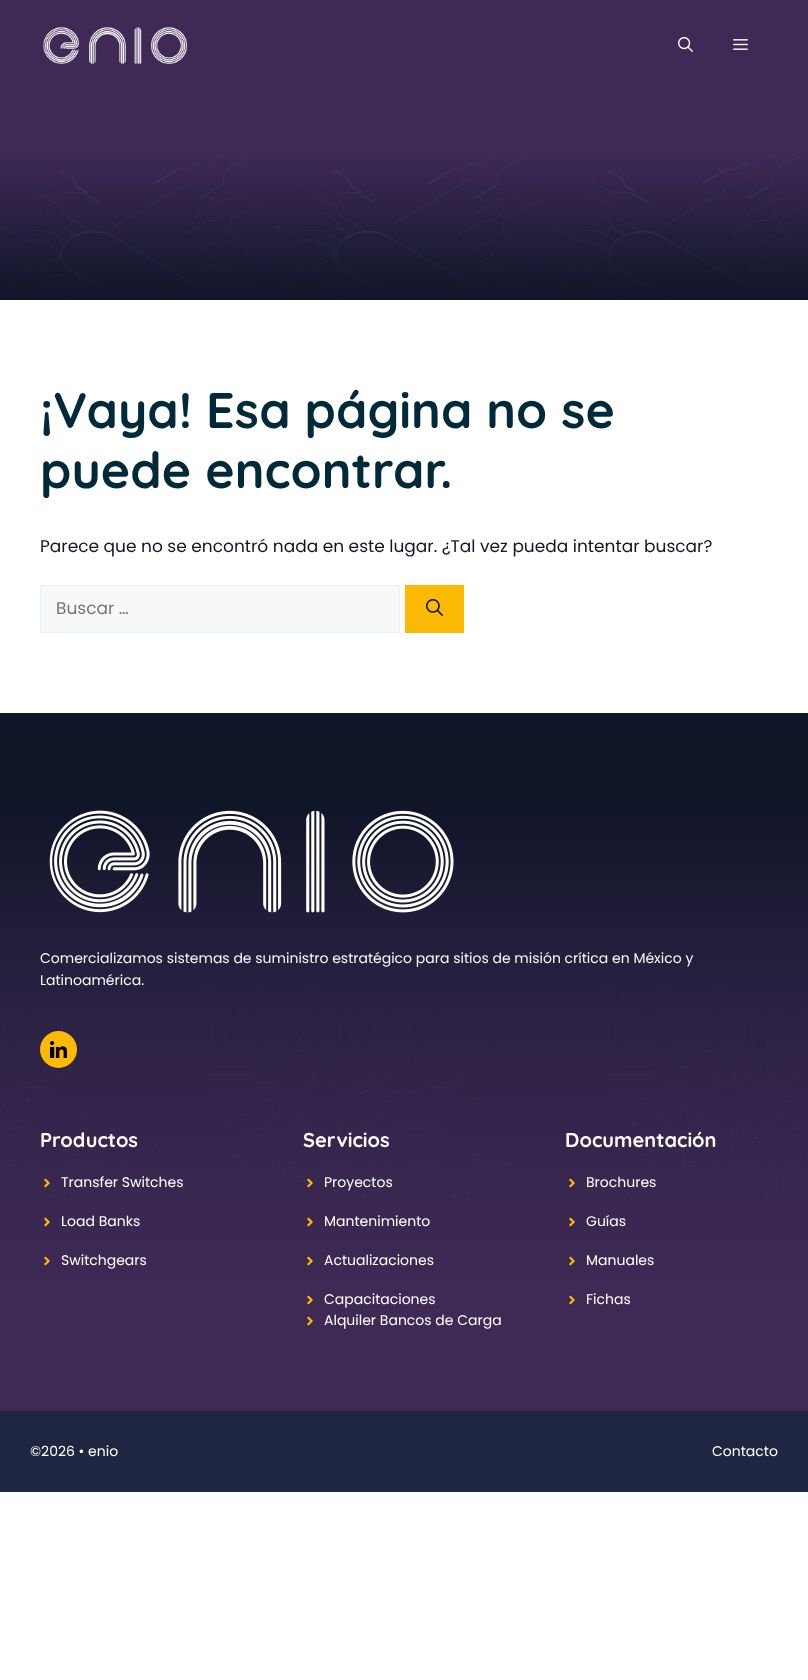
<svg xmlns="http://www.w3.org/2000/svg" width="808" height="1680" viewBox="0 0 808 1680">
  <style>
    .t1 { font: bold 50px Quicksand; fill: #002a3a; }
    .t2 { font: 17px Poppins; fill: #101528; }
    .t3 { font: 17px Poppins; fill: #757575; }
    .t4 { font: 14px Poppins; fill: #f7f8f9; }
    .t5 { font: bold 20px Quicksand; fill: #fff; }
    .t6 { font: 14px Poppins; fill: #fff; }
  </style>
  <defs>
    <linearGradient id="g1" gradientUnits="userSpaceOnUse" x1="404" y1="0" x2="404" y2="300"><stop offset="0.5" stop-color="#101528" stop-opacity="0"/><stop offset="1" stop-color="#101528"/></linearGradient>
    <linearGradient id="g2" gradientUnits="userSpaceOnUse" x1="404" y1="713" x2="404" y2="1371"><stop offset="0.14" stop-color="#101528"/><stop offset="1" stop-color="#3f2a57" stop-opacity="0.16"/></linearGradient>
  </defs>
  <rect width="100%" height="100%" fill="#fff"/>
  <rect x="0" y="0" width="808" height="299" fill="#3f2a56"/>
  <image x="0" y="154" width="808" height="145" href="images/1.png"/>
  <rect x="0" y="155" width="808" height="145" fill="url(#g1)"/>
  <image x="43" y="27" width="145" height="37" href="images/2.png"/>
  <image x="678" y="37" width="15" height="15" href="images/3.png"/>
  <image x="733" y="39" width="15" height="11" href="images/4.png"/>
  <text x="40" y="428" class="t1">¡Vaya! Esa página no se</text>
  <text x="40" y="488" class="t1">puede encontrar.</text>
  <text x="40" y="552" class="t2">Parece que no se encontró nada en este lugar. ¿Tal vez pueda intentar buscar?</text>
  <rect x="40.5" y="585.5" width="359" height="47" fill="#f7f8f9" stroke="#f0f0f0"/>
  <text x="56" y="614" class="t3">Buscar …</text>
  <rect x="405" y="585" width="59" height="48" fill="#fcba04"/>
  <image x="426" y="599" width="17" height="17" href="images/5.png"/>
  <rect x="0" y="809" width="808" height="602" fill="#3f2a56"/>
  <image x="0" y="960" width="808" height="243" href="images/6.png"/>
  <rect x="0" y="713" width="808" height="566" fill="url(#g2)"/>
  <image x="49" y="810" width="405" height="103" href="images/7.png"/>
  <text x="40" y="963" class="t4">Comercializamos sistemas de suministro estratégico para sitios de misión crítica en México y</text>
  <text x="40" y="985" class="t4">Latinoamérica.</text>
  <circle cx="58.5" cy="1049.5" r="18.5" fill="#fcba04"/>
  <image x="50" y="1041" width="17" height="17" href="images/8.png"/>
  <text x="40" y="1147" class="t5">Productos</text>
  <image x="44" y="1178" width="6" height="10" href="images/9.png"/>
  <text x="61" y="1187" class="t6">Transfer Switches</text>
  <image x="44" y="1217" width="6" height="10" href="images/10.png"/>
  <text x="61" y="1226" class="t6">Load Banks</text>
  <image x="44" y="1256" width="6" height="10" href="images/11.png"/>
  <text x="61" y="1265" class="t6">Switchgears</text>
  <text x="303" y="1147" class="t5">Servicios</text>
  <image x="307" y="1178" width="6" height="10" href="images/12.png"/>
  <text x="324" y="1187" class="t6">Proyectos</text>
  <image x="307" y="1217" width="6" height="10" href="images/10.png"/>
  <text x="324" y="1226" class="t6">Mantenimiento</text>
  <image x="307" y="1256" width="6" height="10" href="images/11.png"/>
  <text x="324" y="1265" class="t6">Actualizaciones</text>
  <image x="307" y="1295" width="6" height="10" href="images/13.png"/>
  <text x="324" y="1304" class="t6">Capacitaciones</text>
  <image x="307" y="1316" width="6" height="10" href="images/14.png"/>
  <text x="324" y="1325" class="t6">Alquiler Bancos de Carga</text>
  <text x="565" y="1147" class="t5">Documentación</text>
  <image x="569" y="1178" width="6" height="10" href="images/15.png"/>
  <text x="586" y="1187" class="t6">Brochures</text>
  <image x="569" y="1217" width="6" height="10" href="images/10.png"/>
  <text x="586" y="1226" class="t6">Guías</text>
  <image x="569" y="1256" width="6" height="10" href="images/11.png"/>
  <text x="586" y="1265" class="t6">Manuales</text>
  <image x="569" y="1295" width="6" height="10" href="images/13.png"/>
  <text x="586" y="1304" class="t6">Fichas</text>
  <rect x="0" y="1411" width="808" height="81" fill="#1f2641"/>
  <text x="30" y="1456" class="t6">©2026 • enio</text>
  <text x="712" y="1456" class="t6">Contacto</text>
</svg>
